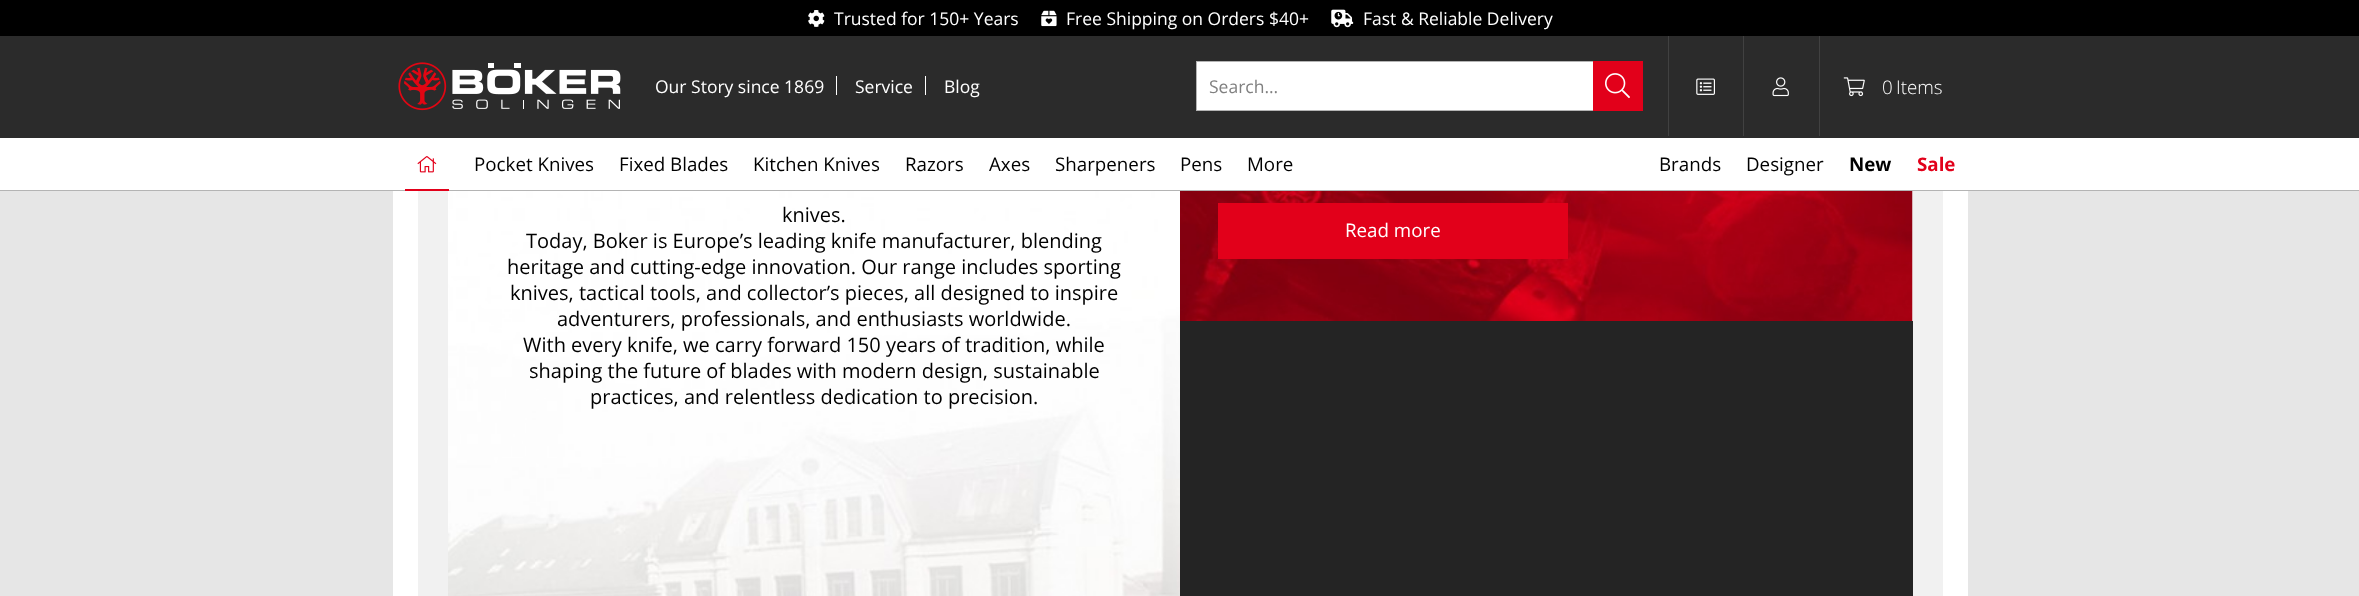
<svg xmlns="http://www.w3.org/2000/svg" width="2359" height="596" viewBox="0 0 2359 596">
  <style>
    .t1 { font: 17.5px Open Sans; fill: #fff; }
    .t2 { font: 17.5px Open Sans; fill: #808080; }
    .t3 { font: 300 18.75px Open Sans; fill: #fff; }
    .t4 { font: 18.75px Open Sans; fill: #000; }
    .t5 { font: bold 18.75px Open Sans; fill: #000; }
    .t6 { font: bold 18.75px Open Sans; fill: #e2001a; }
    .t7 { font: 20px Open Sans; fill: #000; }
    .t8 { font: 18.75px Open Sans; fill: #fff; }
  </style>
  <rect width="100%" height="100%" fill="#e6e6e6"/>
  <rect x="0" y="0" width="2359" height="36" fill="#000"/>
  <image x="808" y="10" width="17" height="17" href="images/1.png"/>
  <text x="834" y="25" class="t1">Trusted for 150+ Years</text>
  <image x="1041" y="10" width="16" height="17" href="images/2.png"/>
  <text x="1066" y="25" class="t1">Free Shipping on Orders $40+</text>
  <image x="1331" y="9" width="23" height="19" href="images/3.png"/>
  <text x="1363" y="25" class="t1">Fast &amp; Reliable Delivery</text>
  <rect x="0" y="36" width="2359" height="102" fill="#2b2b2b"/>
  <image x="398" y="62" width="223" height="49" href="images/4.png"/>
  <rect x="836" y="76" width="1" height="19" fill="#fff"/>
  <text x="655" y="93" class="t1">Our Story since 1869</text>
  <rect x="925" y="76" width="1" height="19" fill="#fff"/>
  <text x="855" y="93" class="t1">Service</text>
  <text x="944" y="93" class="t1">Blog</text>
  <rect x="1668" y="36" width="1" height="100" fill="#414141"/>
  <rect x="1197" y="62" width="396" height="48" fill="#fff"/>
  <rect x="1196.5" y="61.5" width="446" height="49" fill="none" stroke="#b4b4b4"/>
  <text x="1209" y="93" class="t2">Search...</text>
  <rect x="1593" y="61" width="50" height="50" fill="#e2001a"/>
  <image x="1605" y="73" width="25" height="26" href="images/5.png"/>
  <rect x="1743" y="36" width="1" height="100" fill="#414141"/>
  <image x="1696" y="78" width="19" height="17" href="images/6.png"/>
  <rect x="1819" y="36" width="1" height="100" fill="#414141"/>
  <image x="1772" y="77" width="17" height="20" href="images/7.png"/>
  <image x="1843" y="77" width="22" height="20" href="images/8.png"/>
  <text x="1882" y="94" class="t3">0</text>
  <text x="1896" y="94" class="t3">Items</text>
  <rect x="0" y="138" width="2359" height="52" fill="#fff"/>
  <rect x="0" y="190" width="2359" height="1" fill="#b4b4b4"/>
  <rect x="405" y="189" width="44" height="2" fill="#e2001a"/>
  <image x="417" y="156" width="20" height="17" href="images/9.png"/>
  <text x="474" y="171" class="t4">Pocket Knives</text>
  <text x="619" y="171" class="t4">Fixed Blades</text>
  <text x="753" y="171" class="t4">Kitchen Knives</text>
  <text x="905" y="171" class="t4">Razors</text>
  <text x="989" y="171" class="t4">Axes</text>
  <text x="1055" y="171" class="t4">Sharpeners</text>
  <text x="1180" y="171" class="t4">Pens</text>
  <text x="1247" y="171" class="t4">More</text>
  <text x="1659" y="171" class="t4">Brands</text>
  <text x="1746" y="171" class="t4">Designer</text>
  <text x="1849" y="171" class="t5">New</text>
  <text x="1917" y="171" class="t6">Sale</text>
  <rect x="393" y="191" width="1575" height="405" fill="#fff"/>
  <rect x="418" y="191" width="1525" height="405" fill="#f1f1f1"/>
  <image x="448" y="191" width="732" height="405" href="images/10.png"/>
  <text x="782" y="222" class="t7">knives.</text>
  <text x="526" y="248" class="t7">Today, Boker is Europe’s leading knife manufacturer, blending</text>
  <text x="507" y="274" class="t7">heritage and cutting-edge innovation. Our range includes sporting</text>
  <text x="510" y="300" class="t7">knives, tactical tools, and collector’s pieces, all designed to inspire</text>
  <text x="557" y="326" class="t7">adventurers, professionals, and enthusiasts worldwide.</text>
  <text x="523" y="352" class="t7">With every knife, we carry forward 150 years of tradition, while</text>
  <text x="529" y="378" class="t7">shaping the future of blades with modern design, sustainable</text>
  <text x="590" y="404" class="t7">practices, and relentless dedication to precision.</text>
  <image x="1180" y="191" width="733" height="130" href="images/11.png"/>
  <rect x="1218" y="203" width="350" height="56" fill="#e2001a"/>
  <text x="1345" y="237" class="t8">Read more</text>
  <rect x="1180" y="321" width="733" height="275" fill="#242424"/>
</svg>
